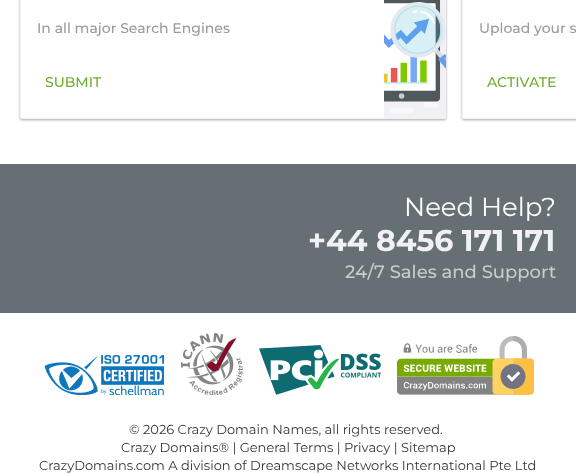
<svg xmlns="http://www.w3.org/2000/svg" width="576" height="476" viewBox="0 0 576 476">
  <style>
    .t1 { font: 500 14px Montserrat; fill: #949c9e; }
    .t2 { font: 500 14px Montserrat; fill: #6fac2f; }
    .t3 { font: 26px Montserrat; fill: #fff; }
    .t4 { font: bold 30px Montserrat; fill: #f0f0f5; }
    .t5 { font: 500 18px Montserrat; fill: #c7cccf; }
    .t6 { font: 13px Montserrat; fill: #373737; }
  </style>
  <rect width="100%" height="100%" fill="#fff"/>
  <rect x="20" y="-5" width="426" height="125" rx="2" fill="#0000003d" filter="blur(1px)"/>
  <rect x="20" y="-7" width="426" height="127" rx="2" fill="#0000001f" filter="blur(1.5px)"/>
  <rect x="20.5" y="-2.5" width="425" height="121" rx="1.5" fill="#fff" stroke="#f1f1f1"/>
  <text x="37" y="33" class="t1">In all major Search Engines</text>
  <text x="45" y="87" class="t2">SUBMIT</text>
  <image x="384" y="0" width="62" height="119" href="images/1.png"/>
  <rect x="462" y="-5" width="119" height="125" rx="2" fill="#0000003d" filter="blur(1px)"/>
  <rect x="462" y="-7" width="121" height="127" rx="2" fill="#0000001f" filter="blur(1.5px)"/>
  <path d="M464-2H576V119H464C463 119 462 118 462 117V0C462-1 463-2 464-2Z" fill="#fff"/>
  <rect x="462.5" y="-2.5" width="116" height="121" rx="1.5" fill="none" stroke="#f1f1f1"/>
  <text x="479" y="33" class="t1">Upload your s</text>
  <text x="487" y="87" class="t2">ACTIVATE</text>
  <rect x="0" y="164" width="576" height="149" fill="#666f73"/>
  <text x="404" y="216" class="t3">Need Help?</text>
  <text x="308" y="251" class="t4">+44 8456 171 171</text>
  <text x="345" y="278" class="t5">24/7 Sales and Support</text>
  <image x="44" y="355" width="120" height="40" href="images/2.png"/>
  <image x="181" y="333" width="62" height="62" href="images/3.png"/>
  <image x="259" y="345" width="122" height="50" href="images/4.png"/>
  <image x="397" y="336" width="137" height="59" href="images/5.png"/>
  <text x="129" y="434" class="t6">© 2026 Crazy Domain Names, all rights reserved.</text>
  <text x="121" y="452" class="t6">Crazy Domains® | General Terms | Privacy | Sitemap</text>
  <text x="39" y="470" class="t6">CrazyDomains.com A division of Dreamscape Networks International Pte Ltd</text>
</svg>
